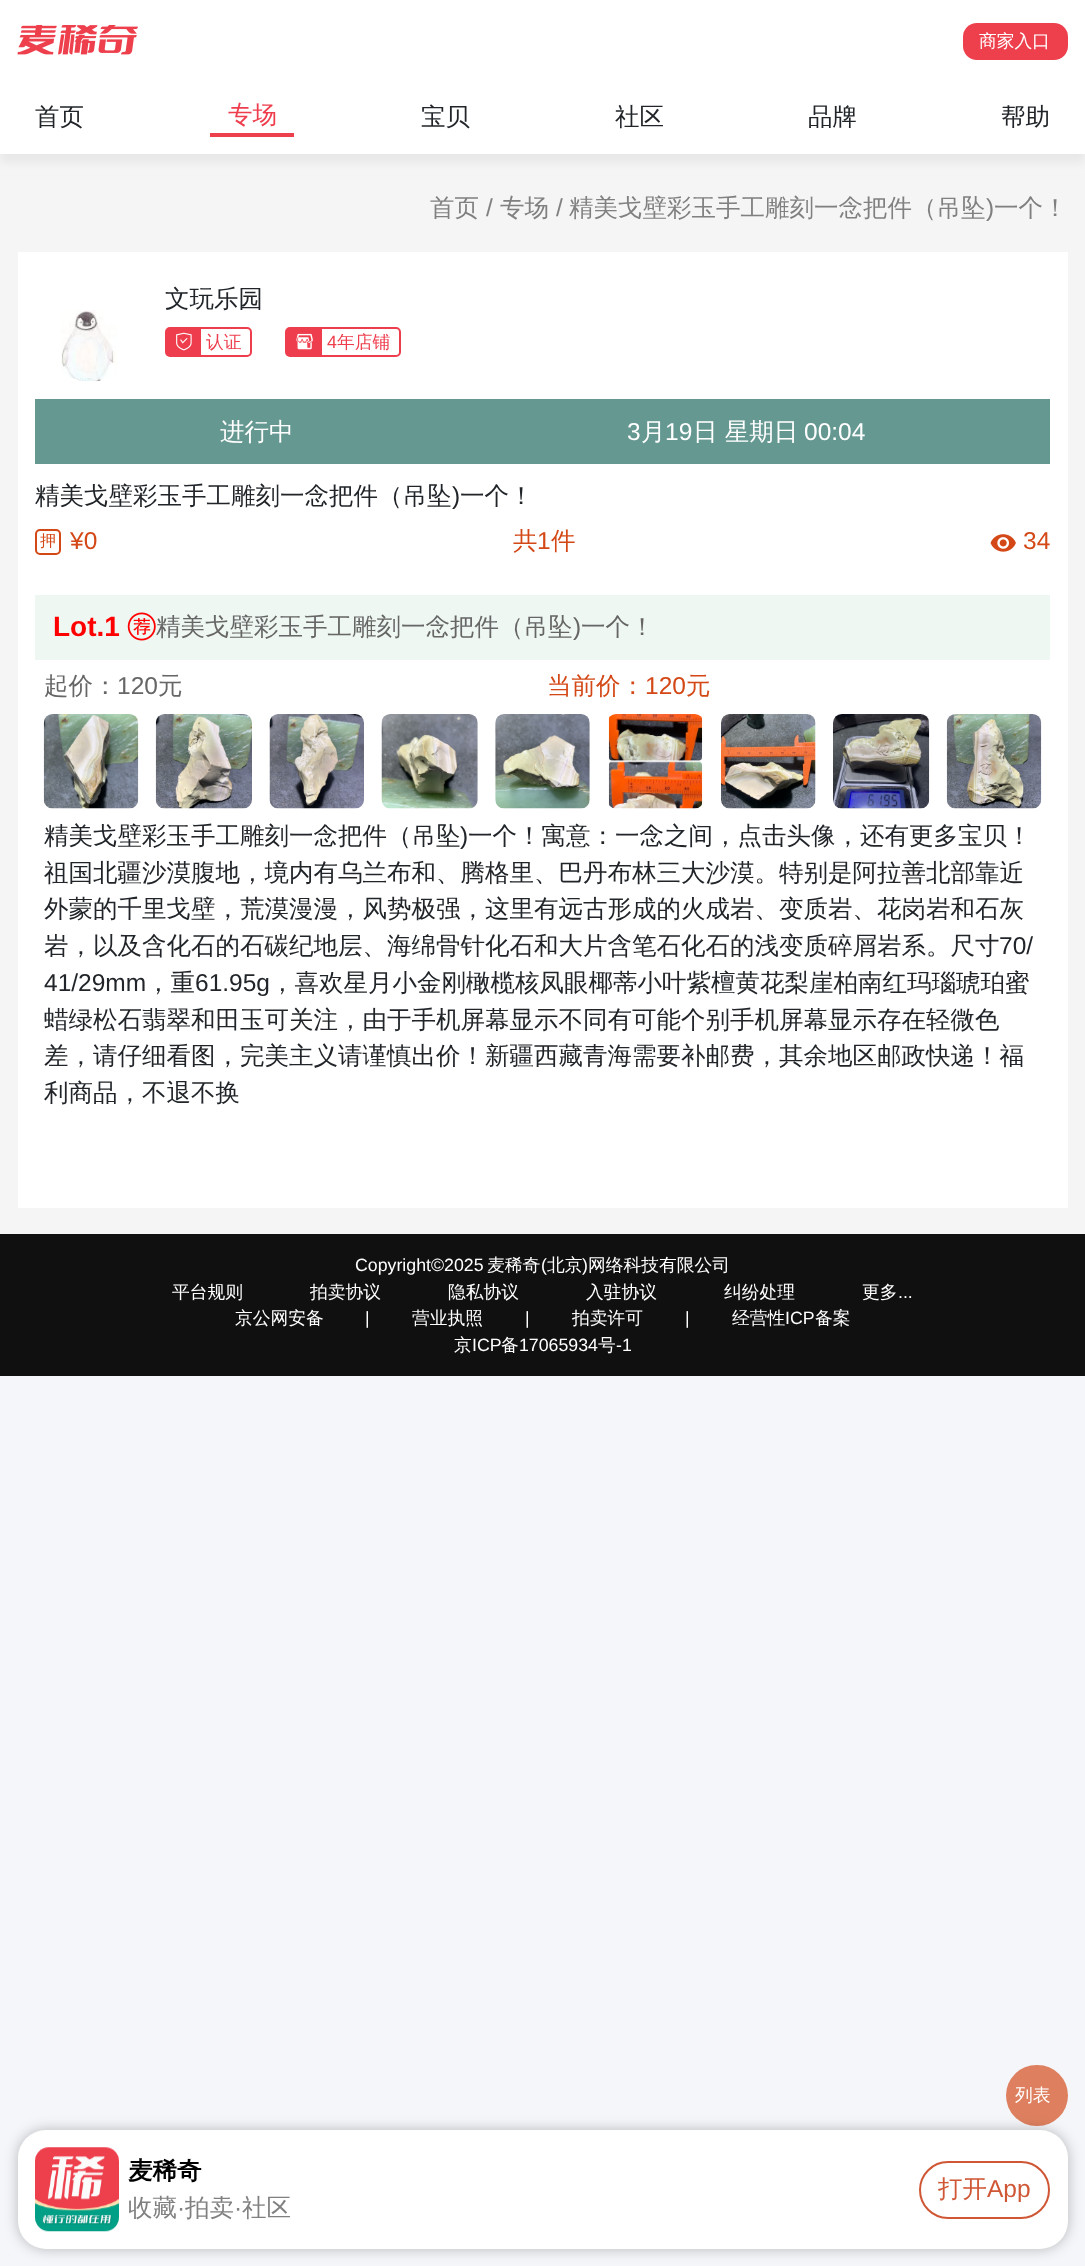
<svg xmlns="http://www.w3.org/2000/svg" width="1085" height="2266" viewBox="0 0 1085 2266">
  <style>
    .t1 { font: 500 17.75px WenQuanYi Zen Hei; fill: #fff; }
    .t2 { font: 500 24.5px WenQuanYi Zen Hei; fill: #212529; }
    .t3 { font: 500 24.5px WenQuanYi Zen Hei; fill: #ee3e4d; }
    .t4 { font: 500 24.5px WenQuanYi Zen Hei; fill: #808080; }
    .t5 { font: 24.5px Liberation Sans; fill: #808080; }
    .t6 { font: 500 17.75px WenQuanYi Zen Hei; fill: #ee3e4d; }
    .t7 { font: 17.75px Liberation Sans; fill: #ee3e4d; }
    .t8 { font: 500 24.5px WenQuanYi Zen Hei; fill: #fff; }
    .t9 { font: 24.5px Liberation Sans; fill: #fff; }
    .t10 { font: 24.5px Liberation Sans; fill: #212529; }
    .t11 { font: 500 16px WenQuanYi Zen Hei; fill: #d34816; }
    .t12 { font: 24.5px Liberation Sans; fill: #d34816; }
    .t13 { font: 500 24.5px WenQuanYi Zen Hei; fill: #d34816; }
    .t14 { font: bold 28px Liberation Sans; fill: #f00; }
    .t15 { font: 500 24.5px WenQuanYi Zen Hei; fill: #666; }
    .t16 { font: 24.5px Liberation Sans; fill: #666; }
    .t17 { font: 17.75px Liberation Sans; fill: #fff; }
    .t18 { font: bold 24.5px WenQuanYi Zen Hei; fill: #000; }
    .t19 { font: 500 24.5px WenQuanYi Zen Hei; fill: #cf5735; }
    .t20 { font: 24.5px Liberation Sans; fill: #cf5735; }
  </style>
  <rect width="100%" height="100%" fill="#f4f6f9"/>
  <rect x="0" y="154" width="1085" height="1080" fill="#f5f5f5"/>
  <rect x="0" y="0" width="1085" height="79" fill="#fff"/>
  <image x="17" y="25" width="121" height="30" href="images/1.png"/>
  <rect x="963" y="23" width="105" height="37" rx="14" fill="#ee3f4d"/>
  <text x="979" y="47" class="t1">商家入口</text>
  <rect x="0" y="88" width="1085" height="75" fill="#0000000d" filter="blur(4.5px)"/>
  <rect x="0" y="79" width="1085" height="75" fill="#fff"/>
  <text x="35" y="125" class="t2">首页</text>
  <rect x="210" y="133" width="84" height="4" fill="#ee3f4d"/>
  <text x="228" y="123" class="t3">专场</text>
  <text x="421" y="125" class="t2">宝贝</text>
  <text x="615" y="125" class="t2">社区</text>
  <text x="808" y="125" class="t2">品牌</text>
  <text x="1001" y="125" class="t2">帮助</text>
  <text x="430" y="216" class="t4">首页</text>
  <text x="486" y="216" class="t5">/</text>
  <text x="500" y="216" class="t4">专场</text>
  <text x="556" y="216" class="t5">/</text>
  <text x="569" y="216" class="t4">精美戈壁彩玉手工雕刻一念把件（吊坠</text>
  <text x="986" y="216" class="t5">)</text>
  <text x="994" y="216" class="t4">一个！</text>
  <rect x="18" y="252" width="1050" height="956" fill="#fff"/>
  <image x="61" y="310" width="56" height="72" href="images/2.png"/>
  <text x="165" y="307" class="t2">文玩乐园</text>
  <rect x="166" y="328" width="85" height="28" rx="4" fill="none" stroke="#ee3e4d" stroke-width="2"/>
  <rect x="167" y="329" width="34" height="26" fill="#ee3e4d"/>
  <image x="176" y="332" width="16" height="19" href="images/3.png"/>
  <text x="206" y="348" class="t6">认证</text>
  <rect x="286" y="328" width="114" height="28" rx="4" fill="none" stroke="#ee3e4d" stroke-width="2"/>
  <rect x="287" y="329" width="35" height="26" fill="#ee3e4d"/>
  <image x="296" y="333" width="17" height="17" href="images/4.png"/>
  <text x="327" y="348" class="t7">4</text>
  <text x="337" y="348" class="t6">年店铺</text>
  <rect x="35" y="399" width="1015" height="65" fill="#669892"/>
  <text x="220" y="440" class="t8">进行中</text>
  <text x="627" y="440" class="t9">3</text>
  <text x="641" y="440" class="t8">月</text>
  <text x="665" y="440" class="t9">19</text>
  <text x="693" y="440" class="t8">日 星期日</text>
  <text x="804" y="440" class="t9">00:04</text>
  <text x="35" y="504" class="t2">精美戈壁彩玉手工雕刻一念把件（吊坠</text>
  <text x="452" y="504" class="t10">)</text>
  <text x="460" y="504" class="t2">一个！</text>
  <rect x="36" y="530" width="24" height="24" rx="4" fill="none" stroke="#d34816" stroke-width="2"/>
  <text x="40" y="546" class="t11">押</text>
  <text x="70" y="549" class="t12">¥0</text>
  <text x="513" y="549" class="t13">共</text>
  <text x="537" y="549" class="t12">1</text>
  <text x="551" y="549" class="t13">件</text>
  <image x="990" y="534" width="26" height="18" href="images/5.png"/>
  <text x="1023" y="549" class="t12">34</text>
  <rect x="35" y="595" width="1015" height="65" fill="#eef7f2"/>
  <text x="53" y="636" class="t14">Lot.1</text>
  <image x="127" y="612" width="29" height="29" href="images/6.png"/>
  <text x="156" y="635" class="t15">精美戈壁彩玉手工雕刻一念把件（吊坠</text>
  <text x="573" y="635" class="t16">)</text>
  <text x="581" y="635" class="t15">一个！</text>
  <text x="44" y="694" class="t15">起价：</text>
  <text x="117" y="694" class="t16">120</text>
  <text x="158" y="694" class="t15">元</text>
  <text x="547" y="694" class="t13">当前价：</text>
  <text x="645" y="694" class="t12">120</text>
  <text x="686" y="694" class="t13">元</text>
  <image x="43" y="714" width="96" height="95" href="images/7.png"/>
  <image x="155" y="714" width="97" height="95" href="images/8.png"/>
  <image x="269" y="714" width="95" height="95" href="images/9.png"/>
  <image x="381" y="714" width="97" height="95" href="images/10.png"/>
  <image x="495" y="714" width="95" height="95" href="images/11.png"/>
  <image x="608" y="714" width="95" height="95" href="images/12.png"/>
  <image x="721" y="714" width="95" height="95" href="images/13.png"/>
  <image x="833" y="714" width="97" height="95" href="images/14.png"/>
  <image x="946" y="714" width="96" height="95" href="images/15.png"/>
  <text x="44" y="844" class="t2">精美戈壁彩玉手工雕刻一念把件（吊坠</text>
  <text x="460" y="844" class="t10">)</text>
  <text x="468" y="844" class="t2">一个！寓意：一念之间，点击头像，还有更多宝贝！</text>
  <text x="44" y="881" class="t2">祖国北疆沙漠腹地，境内有乌兰布和、腾格里、巴丹布林三大沙漠。特别是阿拉善北部靠近</text>
  <text x="44" y="917" class="t2">外蒙的千里戈壁，荒漠漫漫，风势极强，这里有远古形成的火成岩、变质岩、花岗岩和石灰</text>
  <text x="44" y="954" class="t2">岩，以及含化石的石碳纪地层、海绵骨针化石和大片含笔石化石的浅变质碎屑岩系。尺寸</text>
  <text x="999" y="954" class="t10">70/</text>
  <text x="44" y="991" class="t10">41/29mm</text>
  <text x="146" y="991" class="t2">，重</text>
  <text x="195" y="991" class="t10">61.95g</text>
  <text x="270" y="991" class="t2">，喜欢星月小金刚橄榄核凤眼椰蒂小叶紫檀黄花梨崖柏南红玛瑙琥珀蜜</text>
  <text x="44" y="1028" class="t2">蜡绿松石翡翠和田玉可关注，由于手机屏幕显示不同有可能个别手机屏幕显示存在轻微色</text>
  <text x="44" y="1064" class="t2">差，请仔细看图，完美主义请谨慎出价！新疆西藏青海需要补邮费，其余地区邮政快递！福</text>
  <text x="44" y="1101" class="t2">利商品，不退不换</text>
  <rect x="1006" y="2065" width="62" height="61" rx="30.5" fill="#de805f"/>
  <text x="1015" y="2101" class="t1">列表</text>
  <rect x="0" y="1234" width="1085" height="142" fill="#101010"/>
  <text x="355" y="1271" class="t17">Copyright©2025</text>
  <text x="487" y="1271" class="t1">麦稀奇</text>
  <text x="541" y="1271" class="t17">(</text>
  <text x="547" y="1271" class="t1">北京</text>
  <text x="582" y="1271" class="t17">)</text>
  <text x="588" y="1271" class="t1">网络科技有限公司</text>
  <text x="172" y="1298" class="t1">平台规则</text>
  <text x="310" y="1298" class="t1">拍卖协议</text>
  <text x="448" y="1298" class="t1">隐私协议</text>
  <text x="586" y="1298" class="t1">入驻协议</text>
  <text x="724" y="1298" class="t1">纠纷处理</text>
  <text x="862" y="1298" class="t1">更多</text>
  <text x="898" y="1298" class="t17">...</text>
  <text x="235" y="1324" class="t1">京公网安备</text>
  <text x="365" y="1324" class="t17">|</text>
  <text x="412" y="1324" class="t1">营业执照</text>
  <text x="525" y="1324" class="t17">|</text>
  <text x="572" y="1324" class="t1">拍卖许可</text>
  <text x="685" y="1324" class="t17">|</text>
  <text x="732" y="1324" class="t1">经营性</text>
  <text x="785" y="1324" class="t17">ICP</text>
  <text x="815" y="1324" class="t1">备案</text>
  <text x="454" y="1351" class="t1">京</text>
  <text x="472" y="1351" class="t17">ICP</text>
  <text x="501" y="1351" class="t1">备</text>
  <text x="519" y="1351" class="t17">17065934</text>
  <text x="598" y="1351" class="t1">号</text>
  <text x="616" y="1351" class="t17">-1</text>
  <rect x="18" y="2130" width="1050" height="119" rx="28" fill="#00000040" filter="blur(7px)"/>
  <rect x="18" y="2130" width="1050" height="119" rx="28" fill="#fff"/>
  <image x="35" y="2147" width="84" height="85" href="images/16.png"/>
  <text x="128" y="2179" class="t18">麦稀奇</text>
  <text x="128" y="2216" class="t4">收藏</text>
  <text x="177" y="2216" class="t5">·</text>
  <text x="185" y="2216" class="t4">拍卖</text>
  <text x="234" y="2216" class="t5">·</text>
  <text x="242" y="2216" class="t4">社区</text>
  <rect x="920" y="2162" width="129" height="56" rx="28" fill="none" stroke="#cf5735" stroke-width="2"/>
  <text x="938" y="2197" class="t19">打开</text>
  <text x="987" y="2197" class="t20">App</text>
</svg>
